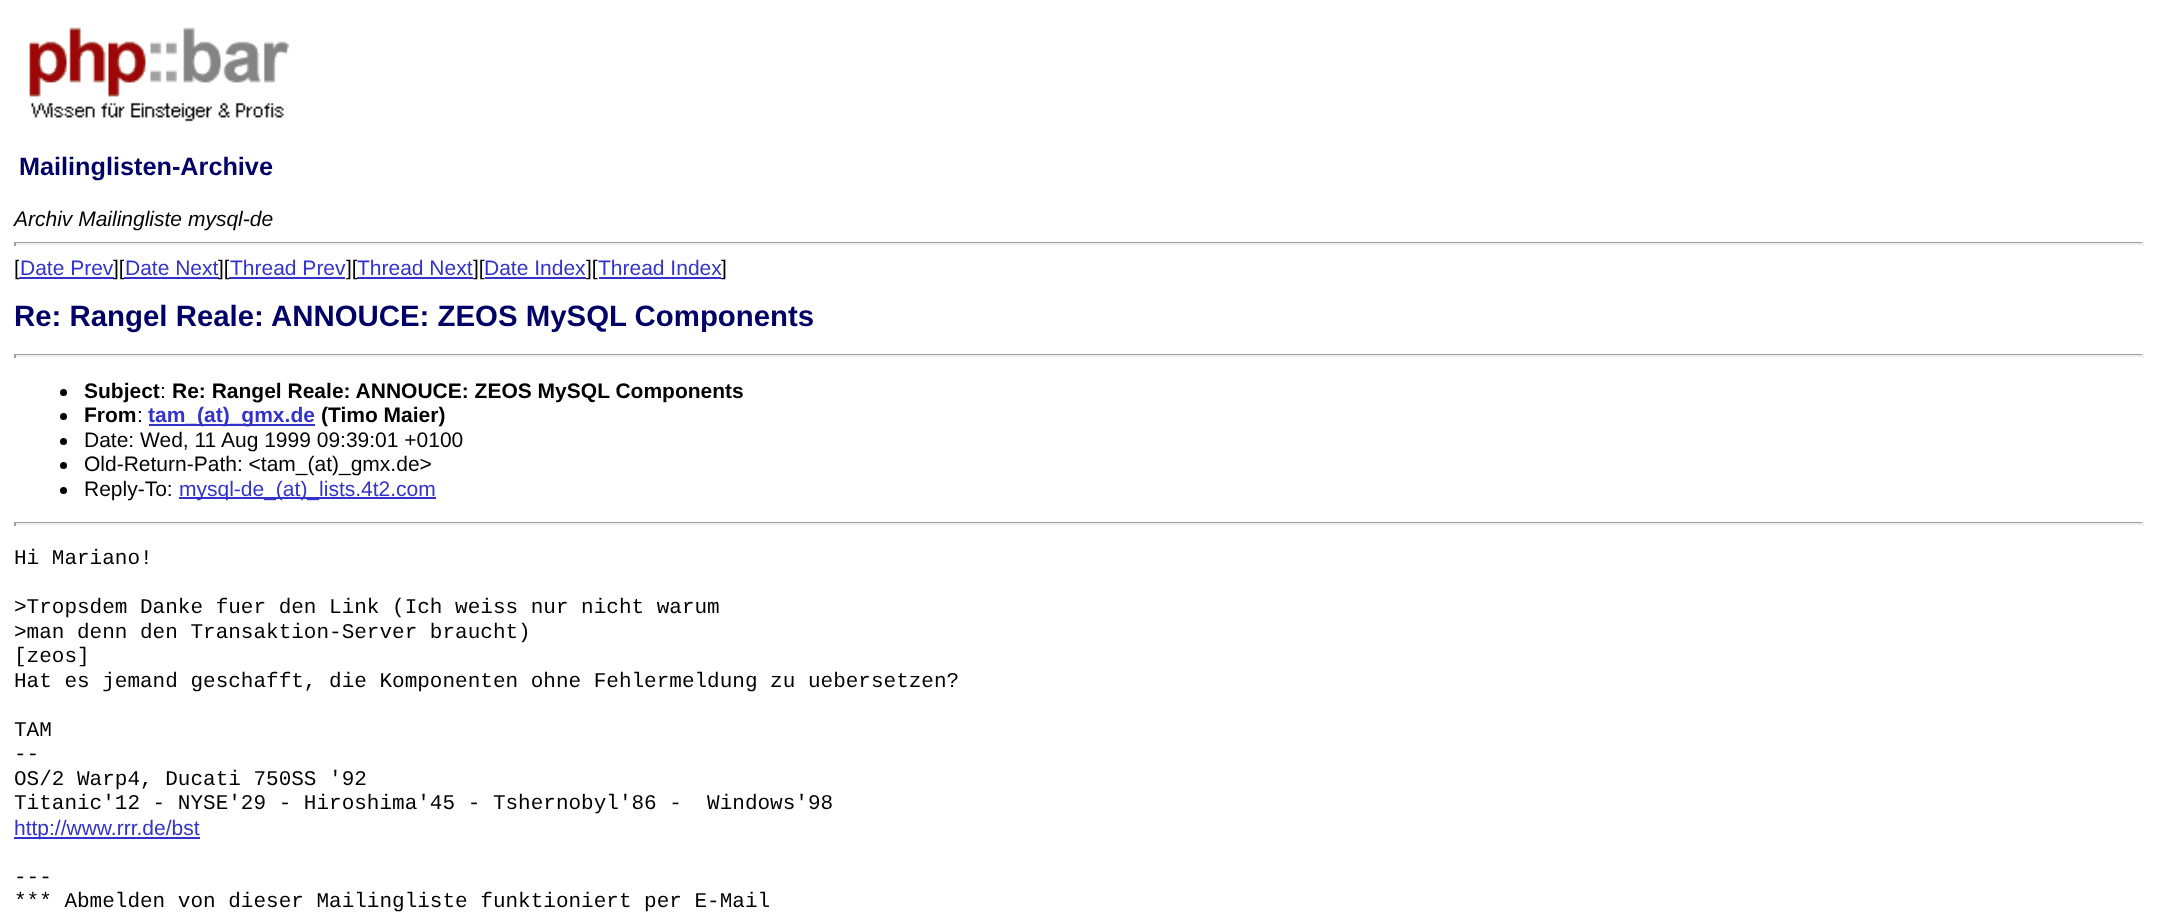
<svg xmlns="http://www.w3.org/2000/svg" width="2157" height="912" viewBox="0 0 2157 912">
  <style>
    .t1 { font: bold 25.25px Liberation Sans; fill: #006; }
    .t2 { font: italic 21px Liberation Sans; fill: #000; }
    .t3 { font: 21px Liberation Sans; fill: #000; }
    .t4 { font: 21px Liberation Sans; fill: #33c; }
    .t5 { font: bold 29.4px Liberation Sans; fill: #006; }
    .t6 { font: bold 21px Liberation Sans; fill: #000; }
    .t7 { font: bold 21px Liberation Sans; fill: #33c; }
    .t8 { font: 21px Liberation Mono; fill: #000; }
  </style>
  <rect width="100%" height="100%" fill="#fff"/>
  <image x="29" y="27" width="261" height="95" href="images/1.png"/>
  <text x="19" y="175" class="t1">Mailinglisten-Archive</text>
  <text x="14" y="226" class="t2">Archiv Mailingliste mysql-de</text>
  <rect x="14" y="242" width="2130" height="1" fill="#9f9f9f"/>
  <rect x="2142" y="242" width="2" height="4" fill="#eee"/>
  <rect x="14" y="243" width="2130" height="2" fill="#eee"/>
  <rect x="14" y="242" width="2" height="4" fill="#9f9f9f"/>
  <text x="14" y="275" class="t3">[</text>
  <text x="20" y="275" class="t4">Date Prev</text>
  <rect x="19" y="259" width="1" height="21" fill="#fff"/>
  <rect x="19" y="277" width="95" height="2" fill="#33c"/>
  <text x="113" y="275" class="t3">][</text>
  <text x="125" y="275" class="t4">Date Next</text>
  <rect x="124" y="259" width="1" height="21" fill="#fff"/>
  <rect x="124" y="277" width="95" height="2" fill="#33c"/>
  <text x="218" y="275" class="t3">][</text>
  <text x="230" y="275" class="t4">Thread Prev</text>
  <rect x="229" y="259" width="1" height="21" fill="#fff"/>
  <rect x="229" y="277" width="116" height="2" fill="#33c"/>
  <text x="346" y="275" class="t3">][</text>
  <rect x="357" y="260" width="1" height="19" fill="#fff"/>
  <text x="357" y="275" class="t4">Thread Next</text>
  <rect x="357" y="277" width="116" height="2" fill="#33c"/>
  <text x="473" y="275" class="t3">][</text>
  <text x="484" y="275" class="t4">Date Index</text>
  <rect x="485" y="277" width="101" height="2" fill="#33c"/>
  <text x="586" y="275" class="t3">][</text>
  <text x="598" y="275" class="t4">Thread Index</text>
  <rect x="599" y="277" width="122" height="2" fill="#33c"/>
  <text x="721" y="275" class="t3">]</text>
  <text x="14" y="326" class="t5">Re: Rangel Reale: ANNOUCE: ZEOS MySQL Components</text>
  <rect x="14" y="354" width="2130" height="1" fill="#9f9f9f"/>
  <rect x="2142" y="354" width="2" height="4" fill="#eee"/>
  <rect x="14" y="355" width="2130" height="2" fill="#eee"/>
  <rect x="14" y="354" width="2" height="4" fill="#9f9f9f"/>
  <circle cx="63.5" cy="392.5" r="3.5" fill="#000"/>
  <text x="84" y="398" class="t6">Subject</text>
  <text x="160" y="398" class="t3">:</text>
  <text x="172" y="398" class="t6">Re: Rangel Reale: ANNOUCE: ZEOS MySQL Components</text>
  <circle cx="63.5" cy="416.5" r="3.5" fill="#000"/>
  <text x="84" y="422" class="t6">From</text>
  <text x="137" y="422" class="t3">:</text>
  <rect x="149" y="424" width="166" height="2" fill="#33c"/>
  <text x="148" y="422" class="t7">tam_(at)_gmx.de</text>
  <text x="321" y="422" class="t6">(Timo Maier)</text>
  <circle cx="63.5" cy="441.5" r="3.5" fill="#000"/>
  <text x="84" y="447" class="t3">Date: Wed, 11 Aug 1999 09:39:01 +0100</text>
  <circle cx="63.5" cy="465.5" r="3.5" fill="#000"/>
  <text x="84" y="471" class="t3">Old-Return-Path: &lt;tam_(at)_gmx.de&gt;</text>
  <circle cx="63.5" cy="490.5" r="3.5" fill="#000"/>
  <text x="84" y="496" class="t3">Reply-To:</text>
  <rect x="179" y="497" width="257" height="2" fill="#33c"/>
  <text x="179" y="496" class="t4">mysql-de_(at)_lists.4t2.com</text>
  <rect x="14" y="522" width="2130" height="1" fill="#9f9f9f"/>
  <rect x="2142" y="522" width="2" height="4" fill="#eee"/>
  <rect x="14" y="523" width="2130" height="2" fill="#eee"/>
  <rect x="14" y="522" width="2" height="4" fill="#9f9f9f"/>
  <text x="14" y="564" class="t8">Hi Mariano!</text>
  <text x="14" y="613" class="t8">&gt;Tropsdem Danke fuer den Link (Ich weiss nur nicht warum</text>
  <text x="14" y="638" class="t8">&gt;man denn den Transaktion-Server braucht)</text>
  <text x="14" y="662" class="t8">[zeos]</text>
  <text x="14" y="687" class="t8">Hat es jemand geschafft, die Komponenten ohne Fehlermeldung zu uebersetzen?</text>
  <text x="14" y="736" class="t8">TAM</text>
  <text x="14" y="760" class="t8">--</text>
  <text x="14" y="785" class="t8">OS/2 Warp4, Ducati 750SS '92</text>
  <text x="14" y="809" class="t8" xml:space="preserve">Titanic'12 - NYSE'29 - Hiroshima'45 - Tshernobyl'86 -  Windows'98</text>
  <rect x="14" y="837" width="186" height="2" fill="#33c"/>
  <text x="14" y="835" class="t4">http://www.rrr.de/bst</text>
  <text x="14" y="883" class="t8">---</text>
  <text x="14" y="907" class="t8">*** Abmelden von dieser Mailingliste funktioniert per E-Mail</text>
</svg>
